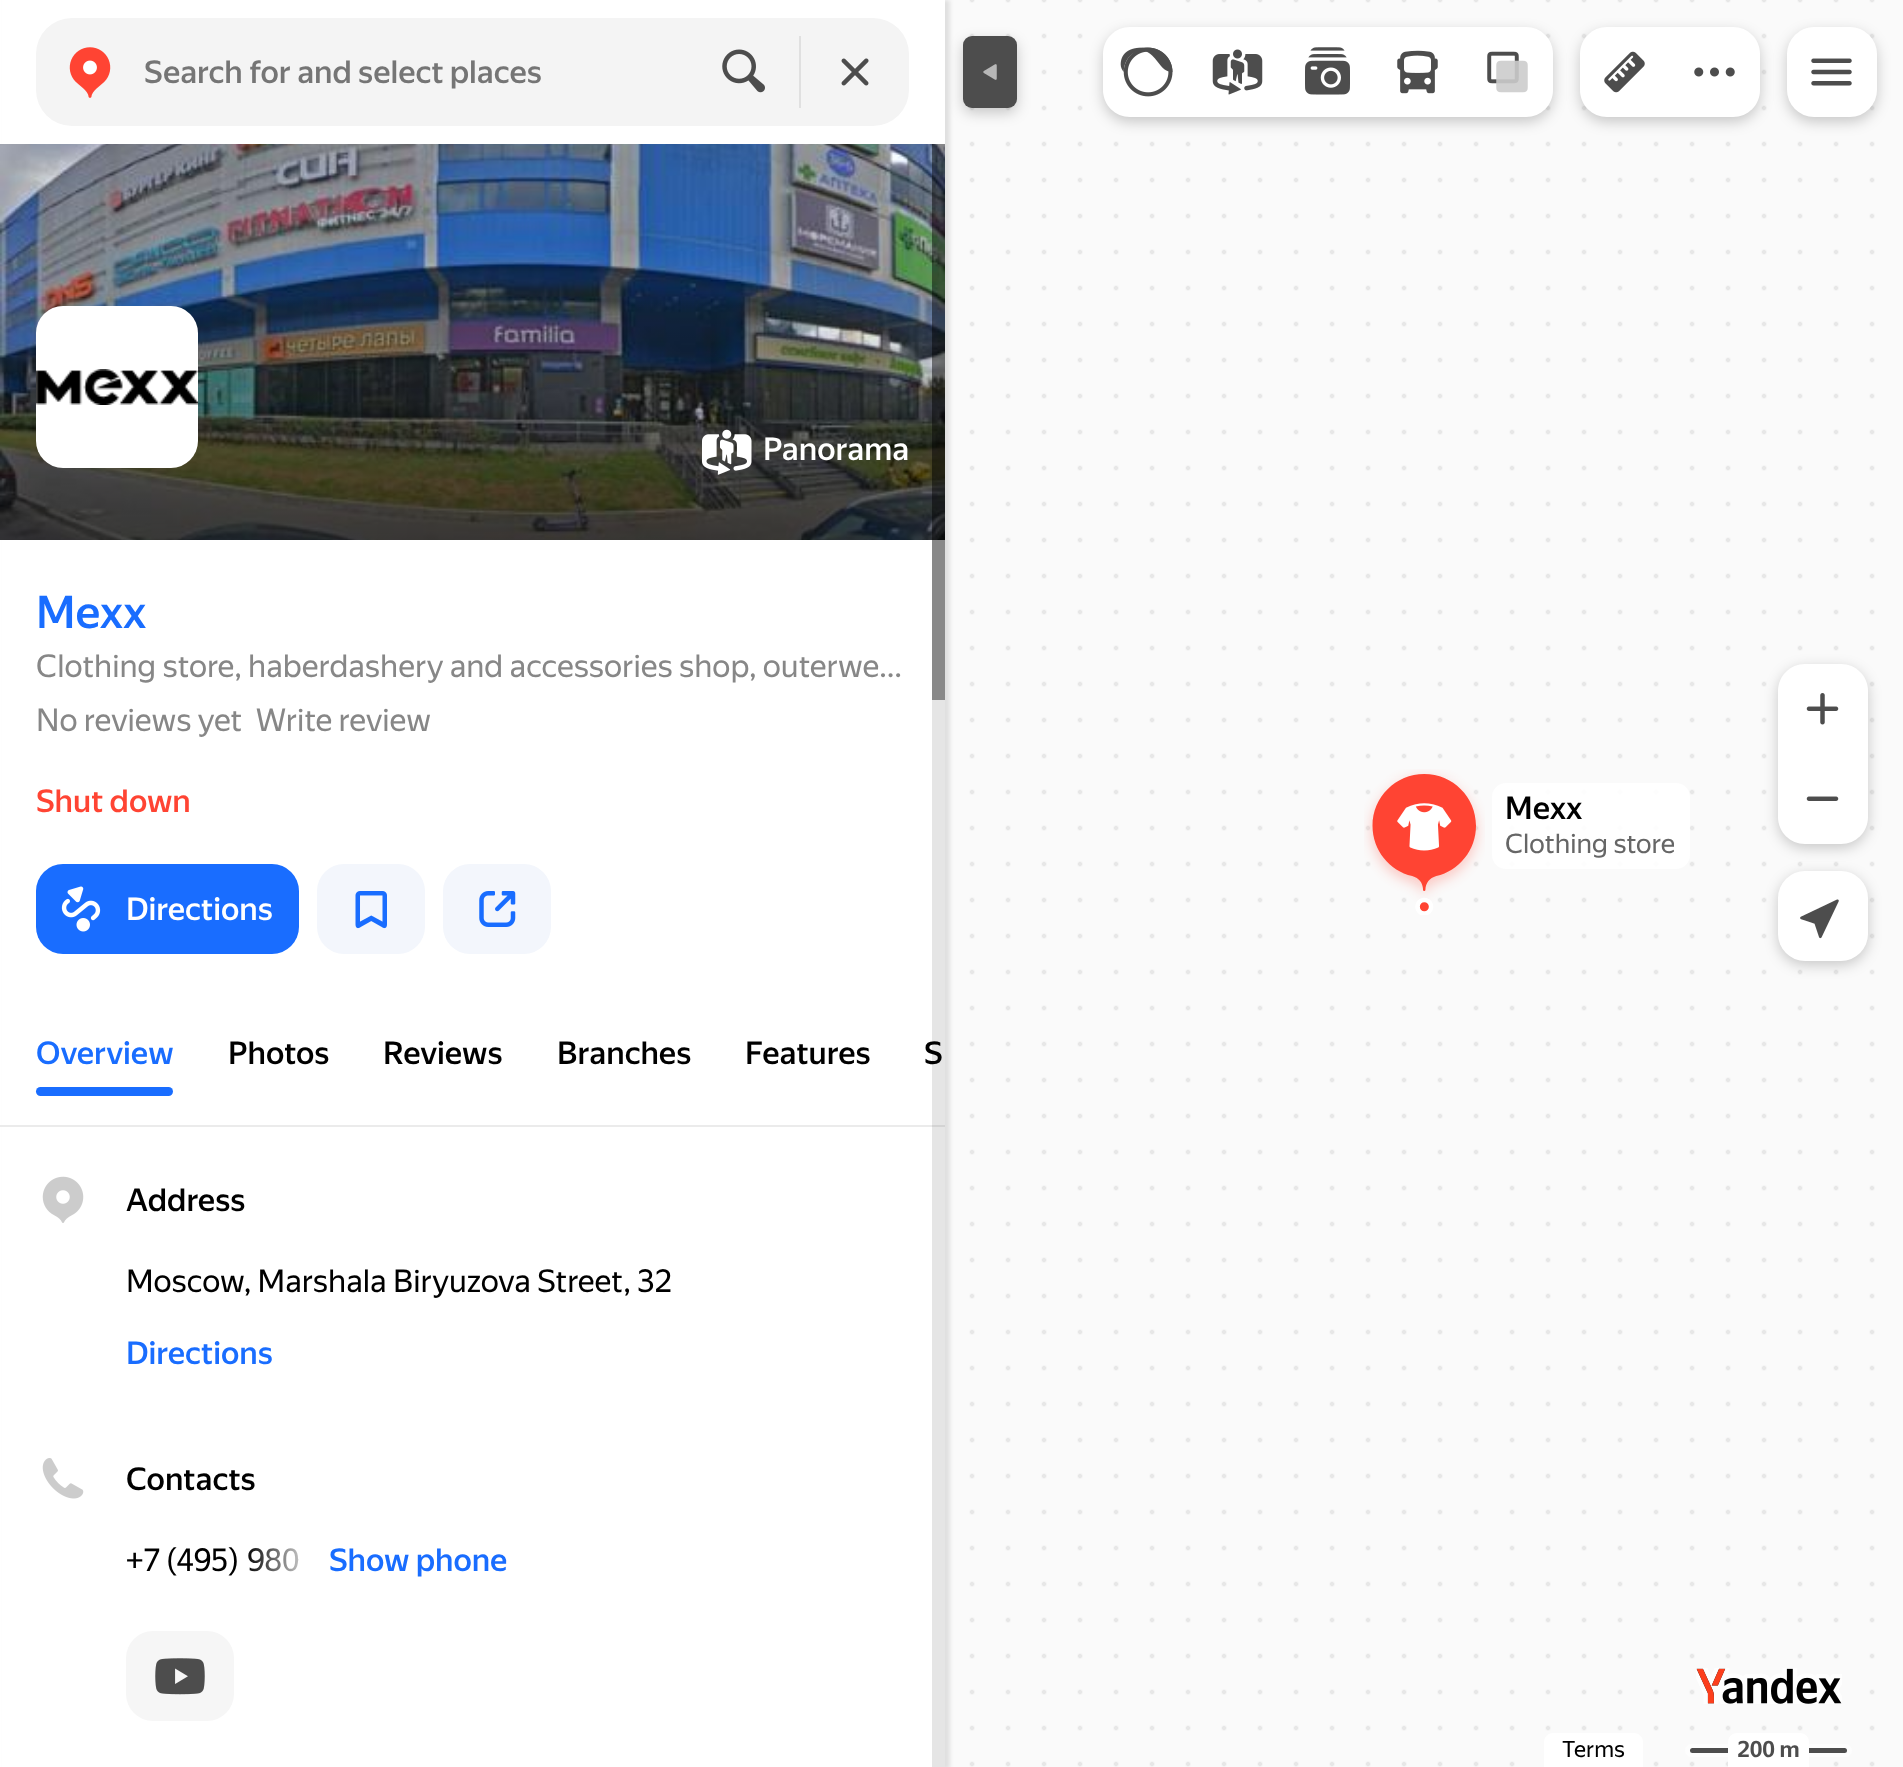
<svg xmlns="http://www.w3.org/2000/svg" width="1903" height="1767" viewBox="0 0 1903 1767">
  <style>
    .t1 { font: 500 31.5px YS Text; fill: #757575; }
    .t2 { font: 500 31.5px YS Text; fill: #fff; }
    .t3 { font: 500 45px YS Text; fill: #196dff; }
    .t4 { font: 31.5px YS Text; fill: #878787; }
    .t5 { font: 500 31.5px YS Text; fill: #f43; }
    .t6 { font: 500 31.5px YS Text; fill: #196dff; }
    .t7 { font: 500 31.5px YS Text; fill: #000; }
    .t8 { font: 31.5px YS Text; fill: #000; }
    .t9 { font: 22.5px YS Text; fill: #000; }
    .t10 { font: bold 22.5px YS Text; fill: #4d4d4d; }
    .t11 { font: 27px YS Text; fill: #666; }
  </style>
  <defs>
    <linearGradient id="g1" gradientUnits="userSpaceOnUse" x1="473" y1="283" x2="473" y2="684"><stop offset="0" stop-color="#000" stop-opacity="0"/><stop offset="0.64" stop-color="#000" stop-opacity="0.5"/></linearGradient>
    <linearGradient id="g2" gradientUnits="userSpaceOnUse" x1="245" y1="1559" x2="317" y2="1559"><stop offset="0" stop-color="#fff" stop-opacity="0"/><stop offset="1" stop-color="#fff"/></linearGradient>
  </defs>
  <rect width="100%" height="100%" fill="#fff"/>
  <image x="945" y="0" width="958" height="1767" href="images/1.png"/>
  <rect x="5" y="0" width="945" height="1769" fill="#0000001a" filter="blur(2px)"/>
  <rect x="963" y="41" width="54" height="72" rx="9" fill="#00000033" filter="blur(7px)"/>
  <rect x="2" y="0" width="943" height="144" fill="#fff"/>
  <rect x="36" y="18" width="873" height="108" rx="36" fill="#f4f4f4"/>
  <image x="69" y="47" width="42" height="51" href="images/2.png"/>
  <text x="144" y="83" class="t1">Search for and select places</text>
  <image x="722" y="49" width="43" height="44" href="images/3.png"/>
  <rect x="799" y="36" width="2" height="72" fill="#e0e0e0"/>
  <image x="841" y="58" width="28" height="28" href="images/4.png"/>
  <rect x="1103" y="32" width="450" height="90" rx="27" fill="#00000033" filter="blur(7px)"/>
  <path d="M1130 27H1193V117H1130C1115 117 1103 105 1103 90V54C1103 39 1115 27 1130 27Z" fill="#fff"/>
  <image x="1120" y="47" width="53" height="50" href="images/5.png"/>
  <rect x="1193" y="27" width="270" height="90" fill="#fff"/>
  <image x="1212" y="49" width="51" height="46" href="images/6.png"/>
  <path d="M1463 27H1526C1541 27 1553 39 1553 54V90C1553 105 1541 117 1526 117H1463Z" fill="#fff"/>
  <image x="1487" y="51" width="41" height="42" href="images/7.png"/>
  <image x="1305" y="47" width="45" height="48" href="images/8.png"/>
  <image x="1397" y="50" width="41" height="44" href="images/9.png"/>
  <rect x="1580" y="32" width="180" height="90" rx="27" fill="#00000033" filter="blur(7px)"/>
  <path d="M1607 27H1670V117H1607C1592 117 1580 105 1580 90V54C1580 39 1592 27 1607 27Z" fill="#fff"/>
  <image x="1604" y="51" width="41" height="42" href="images/10.png"/>
  <path d="M1670 27H1733C1748 27 1760 39 1760 54V90C1760 105 1748 117 1733 117H1670Z" fill="#fff"/>
  <image x="1694" y="67" width="41" height="10" href="images/11.png"/>
  <rect x="1787" y="32" width="90" height="90" rx="27" fill="#00000033" filter="blur(7px)"/>
  <rect x="1787" y="27" width="90" height="90" rx="27" fill="#fff"/>
  <image x="1811" y="58" width="41" height="28" href="images/12.png"/>
  <rect x="1778" y="668" width="90" height="180" rx="27" fill="#00000033" filter="blur(7px)"/>
  <path d="M1805 664H1841C1856 664 1868 676 1868 691V754H1778V691C1778 676 1790 664 1805 664Z" fill="#fff"/>
  <image x="1806" y="693" width="33" height="32" href="images/13.png"/>
  <path d="M1778 754H1868V817C1868 832 1856 844 1841 844H1805C1790 844 1778 832 1778 817Z" fill="#fff"/>
  <image x="1806" y="796" width="33" height="5" href="images/14.png"/>
  <rect x="1778" y="875" width="90" height="90" rx="27" fill="#00000033" filter="blur(7px)"/>
  <rect x="1778" y="871" width="90" height="90" rx="27" fill="#fff"/>
  <image x="1800" y="899" width="39" height="40" href="images/15.png"/>
  <rect x="963" y="36" width="54" height="72" rx="9" fill="#4d4d4d"/>
  <image x="983" y="64" width="14" height="16" href="images/16.png"/>
  <image x="0" y="144" width="945" height="396" href="images/18.png"/>
  <rect x="0" y="294" width="945" height="246" fill="url(#g1)"/>
  <rect x="2" y="540" width="943" height="1227" fill="#fff"/>
  <rect x="0" y="1125" width="945" height="2" fill="#ebebeb"/>
  <rect x="932" y="144" width="13" height="1623" fill="#0000001a"/>
  <rect x="932" y="144" width="13" height="556" fill="#00000066"/>
  <rect x="36" y="306" width="162" height="162" rx="27" fill="#fff"/>
  <image x="36" y="369" width="162" height="36" href="images/17.png"/>
  <image x="702" y="429" width="50" height="46" href="images/19.png"/>
  <text x="763" y="460" class="t2">Panorama</text>
  <text x="36" y="628" class="t3">Mexx</text>
  <text x="36" y="677" class="t4">Clothing store, haberdashery and accessories shop</text>
  <text x="749" y="677" class="t4">, outerwe…</text>
  <text x="36" y="731" class="t4">No reviews yet</text>
  <text x="256" y="731" class="t4">Write review</text>
  <text x="36" y="812" class="t5">Shut down</text>
  <rect x="36" y="864" width="263" height="90" rx="27" fill="#196dff"/>
  <image x="61" y="886" width="40" height="46" href="images/20.png"/>
  <text x="126" y="920" class="t2">Directions</text>
  <rect x="317" y="864" width="108" height="90" rx="27" fill="#f3f6fc"/>
  <image x="355" y="891" width="32" height="38" href="images/21.png"/>
  <rect x="443" y="864" width="108" height="90" rx="27" fill="#f3f6fc"/>
  <image x="479" y="891" width="37" height="36" href="images/22.png"/>
  <text x="36" y="1064" class="t6">Overview</text>
  <text x="228" y="1064" class="t7">Photos</text>
  <text x="383" y="1064" class="t7">Reviews</text>
  <text x="557" y="1064" class="t7">Branches</text>
  <text x="745" y="1064" class="t7">Features</text>
  <text x="924" y="1064" class="t7">S</text>
  <rect x="36" y="1087" width="137" height="9" rx="4.5" fill="#196dff"/>
  <image x="42" y="1176" width="42" height="47" href="images/23.png"/>
  <text x="126" y="1211" class="t7">Address</text>
  <text x="126" y="1292" class="t8">Moscow, Marshala Biryuzova Street, 32</text>
  <text x="126" y="1364" class="t6">Directions</text>
  <image x="42" y="1458" width="42" height="41" href="images/24.png"/>
  <text x="126" y="1490" class="t7">Contacts</text>
  <text x="126" y="1571" class="t8">+7 (495) 980</text>
  <rect x="248" y="1548" width="50" height="24" fill="url(#g2)"/>
  <text x="329" y="1571" class="t6">Show phone</text>
  <rect x="126" y="1631" width="108" height="90" rx="27" fill="#f6f6f6"/>
  <image x="155" y="1658" width="50" height="37" href="images/25.png"/>
  <image x="1696" y="1668" width="146" height="36" href="images/26.png"/>
  <path d="M1553 1733H1634C1639 1733 1643 1737 1643 1742V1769H1544V1742C1544 1737 1548 1733 1553 1733Z" fill="#fff"/>
  <text x="1562" y="1757" class="t9">Terms</text>
  <rect x="1685" y="1744" width="167" height="13" rx="6.5" fill="#fdfdfd"/>
  <rect x="1690" y="1748" width="157" height="5" rx="2.5" fill="#4d4d4d"/>
  <path d="M1737 1733H1800C1805 1733 1809 1737 1809 1742V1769H1728V1742C1728 1737 1732 1733 1737 1733Z" fill="#fff"/>
  <text x="1737" y="1757" class="t10">200 m</text>
  <image x="1364" y="769" width="121" height="146" href="images/27.png"/>
  <image x="1397" y="803" width="55" height="48" href="images/28.png"/>
  <rect x="1492" y="783" width="198" height="86" rx="14" fill="#ffffffe6"/>
  <text x="1505" y="819" class="t7">Mexx</text>
  <text x="1505" y="853" class="t11">Clothing store</text>
</svg>
